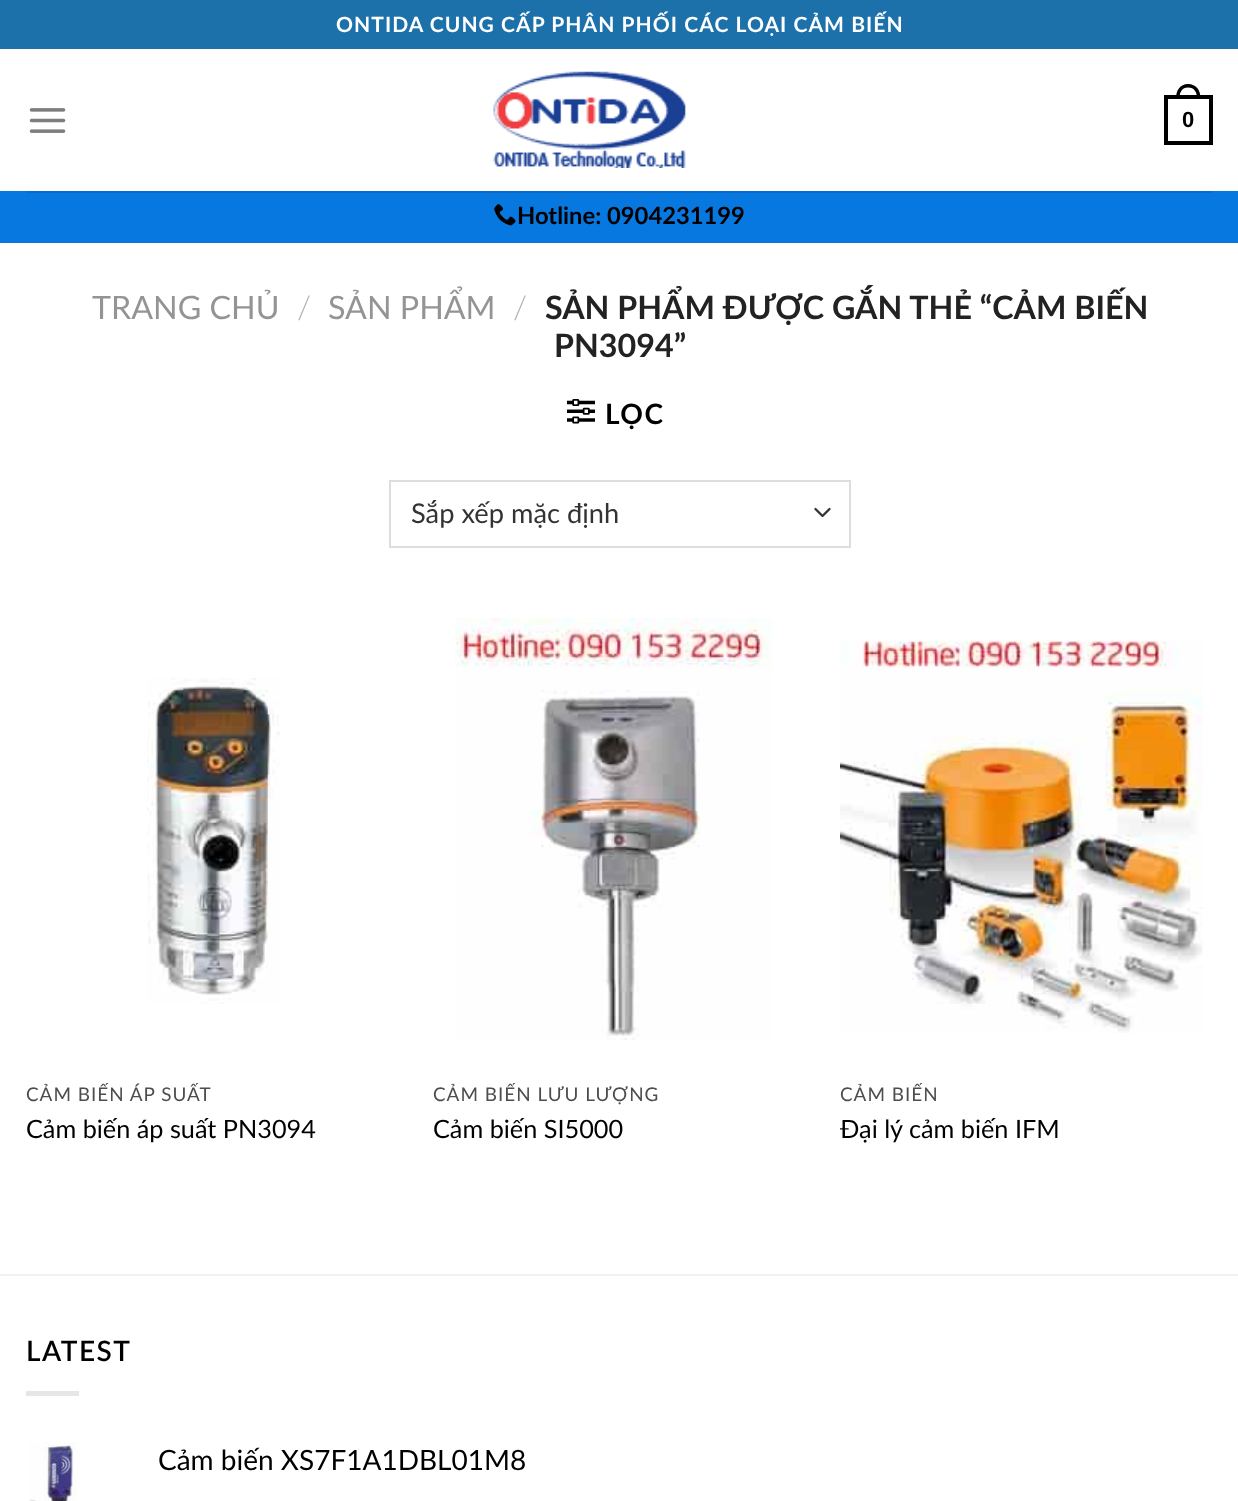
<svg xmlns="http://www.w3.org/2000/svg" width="1238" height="1501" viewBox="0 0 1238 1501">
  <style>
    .t1 { font: bold 21px Lato; letter-spacing: 1.05px; fill: #fff; }
    .t2 { font: bold 22px Liberation Sans; fill: #000; }
    .t3 { font: bold 23.75px Lato; fill: #000; }
    .t4 { font: 32.25px Lato; fill: #949494; }
    .t5 { font: 300 32.25px Lato; fill: #b2b2b2; }
    .t6 { font: bold 32.25px Lato; fill: #222; }
    .t7 { font: bold 28px Lato; letter-spacing: 1.5px; fill: #000; }
    .t8 { font: 27.25px Lato; fill: #333; }
    .t9 { font: 18.9px Lato; letter-spacing: 1px; fill: #4d4d4d; }
    .t10 { font: 25.25px Lato; fill: #000; }
    .t11 { font: 600 28px Lato; letter-spacing: 1.5px; fill: #000; }
    .t12 { font: 28px Lato; fill: #000; }
  </style>
  <defs>
    <clipPath id="clip1"><rect x="26" y="1083" width="373" height="23"/></clipPath>
    <clipPath id="clip2"><rect x="432" y="1083" width="375" height="23"/></clipPath>
    <clipPath id="clip3"><rect x="840" y="1083" width="373" height="23"/></clipPath>
  </defs>
  <rect width="100%" height="100%" fill="#fff"/>
  <rect x="0" y="0" width="1238" height="49" fill="#1d71ab"/>
  <text x="336" y="32" class="t1">ONTIDA CUNG CẤP PHÂN PHỐI CÁC LOẠI CẢM BIẾN</text>
  <image x="29" y="108" width="37" height="25" href="images/1.png"/>
  <image x="493" y="71" width="193" height="97" href="images/2.png"/>
  <rect x="1166" y="97" width="45" height="46" fill="none" stroke="#000" stroke-width="4"/>
  <path d="M1188 84C1196.5 84 1200.5 90.5 1200.5 98H1176C1176 90.5 1180 84 1188 84ZM1188 87.5C1194.5 87.5 1197 92.5 1197 98H1179.5C1179.5 92.5 1182 87.5 1188 87.5Z" fill="#000" fill-rule="evenodd"/>
  <text x="1182" y="127" class="t2">0</text>
  <rect x="0" y="191" width="1238" height="52" fill="#0878e1"/>
  <rect x="26" y="191" width="1187" height="2" fill="#076ccb"/>
  <image x="494" y="204" width="22" height="22" href="images/3.png"/>
  <text x="517" y="224" class="t3">Hotline: 0904231199</text>
  <text x="92" y="319" class="t4">TRANG CHỦ</text>
  <text x="297" y="319" class="t5">/</text>
  <text x="328" y="319" class="t4">SẢN PHẨM</text>
  <text x="513" y="319" class="t5">/</text>
  <text x="545" y="319" class="t6">SẢN PHẨM ĐƯỢC GẮN THẺ “CẢM BIẾN</text>
  <text x="554" y="357" class="t6">PN3094”</text>
  <image x="567" y="399" width="28" height="25" href="images/4.png"/>
  <text x="605" y="424" class="t7">LỌC</text>
  <path d="M815.5 509L822.5 516L829.5 509" fill="none" stroke="#333" stroke-width="2.3" stroke-linecap="round" stroke-linejoin="round"/>
  <rect x="390" y="481" width="460" height="66" fill="none" stroke="#ddd" stroke-width="2"/>
  <text x="411" y="523" class="t8">Sắp xếp mặc định</text>
  <image x="147" y="678" width="133" height="326" href="images/5.png"/>
  <g clip-path="url(#clip1)">
    <text x="26" y="1101" class="t9">CẢM BIẾN ÁP SUẤT</text>
  </g>
  <text x="26" y="1138" class="t10">Cảm biến áp suất PN3094</text>
  <image x="455" y="618" width="317" height="422" href="images/6.png"/>
  <g clip-path="url(#clip2)">
    <text x="433" y="1101" class="t9">CẢM BIẾN LƯU LƯỢNG</text>
  </g>
  <text x="433" y="1138" class="t10">Cảm biến SI5000</text>
  <image x="840" y="640" width="363" height="393" href="images/7.png"/>
  <g clip-path="url(#clip3)">
    <text x="840" y="1101" class="t9">CẢM BIẾN</text>
  </g>
  <text x="840" y="1138" class="t10">Đại lý cảm biến IFM</text>
  <rect x="0" y="1274" width="1238" height="2" fill="#f2f2f2"/>
  <text x="26" y="1361" class="t11">LATEST</text>
  <rect x="26" y="1391" width="53" height="5" fill="#e6e6e6"/>
  <image x="29" y="1442" width="48" height="59" href="images/8.png"/>
  <text x="158" y="1470" class="t12">Cảm biến XS7F1A1DBL01M8</text>
</svg>
